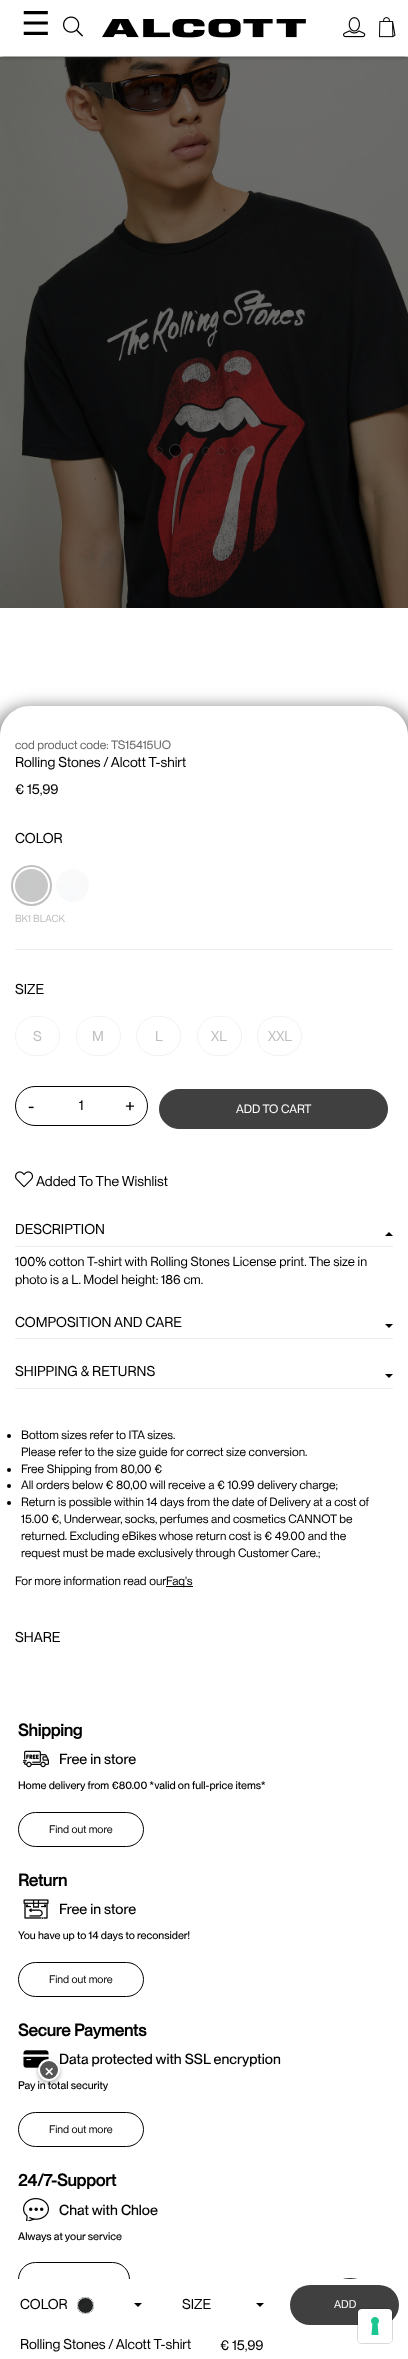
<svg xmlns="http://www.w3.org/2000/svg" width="408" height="2359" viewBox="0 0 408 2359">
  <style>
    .t1 { font: 33px DejaVu Sans; fill: #000; }
    .t2 { font: 12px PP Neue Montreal; fill: #666; }
    .t3 { font: 14px PP Neue Montreal; fill: #000; }
    .t4 { font: 10px PP Neue Montreal; fill: #bfbfbf; }
    .t5 { font: 14px PP Neue Montreal; fill: #bfbfbf; }
    .t6 { font: 18px PP Neue Montreal; fill: #000; }
    .t7 { font: 12px PP Neue Montreal; fill: #fff; }
    .t8 { font: 13px PP Neue Montreal; fill: #000; }
    .t9 { font: 12px PP Neue Montreal; fill: #000; }
    .t10 { font: 11px PP Neue Montreal; fill: #fff; }
    .t11 { font: bold 16.75px PP Neue Montreal; fill: #000; }
    .t12 { font: 500 14.4px PP Neue Montreal; fill: #000; }
    .t13 { font: 500 10.8px PP Neue Montreal; fill: #000; }
    .t14 { font: 10.8px PP Neue Montreal; fill: #000; }
    .t15 { font: bold 12px DejaVu Sans; fill: #fff; }
  </style>
  <defs>
    <clipPath id="clip1"><rect x="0" y="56" width="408" height="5"/></clipPath>
  </defs>
  <rect width="100%" height="100%" fill="#fff"/>
  <image x="0" y="57" width="408" height="551" href="images/5.png"/>
  <g clip-path="url(#clip1)">
    <rect x="0" y="0" width="408" height="56" fill="#333" filter="blur(2.5px)"/>
  </g>
  <text x="21" y="35" class="t1">☰</text>
  <image x="63" y="16" width="20" height="21" href="images/1.png"/>
  <image x="343" y="17" width="23" height="21" href="images/2.png"/>
  <image x="379" y="17" width="17" height="21" href="images/3.png"/>
  <image x="102" y="19" width="204" height="19" href="images/4.png"/>
  <circle cx="159" cy="451" r="4" fill="#00000026"/>
  <circle cx="159" cy="451" r="3.5" fill="none" stroke="#7373733b"/>
  <circle cx="175.5" cy="450.5" r="6.5" fill="#000000ba"/>
  <circle cx="175.5" cy="450.5" r="6" fill="none" stroke="#73737375"/>
  <circle cx="192" cy="451" r="4" fill="#00000026"/>
  <circle cx="192" cy="451" r="3.5" fill="none" stroke="#7373733b"/>
  <circle cx="206" cy="451" r="4" fill="#00000026"/>
  <circle cx="206" cy="451" r="3.5" fill="none" stroke="#7373733b"/>
  <circle cx="221" cy="451" r="4" fill="#00000026"/>
  <circle cx="221" cy="451" r="3.5" fill="none" stroke="#7373733b"/>
  <circle cx="235" cy="451" r="4" fill="#00000026"/>
  <circle cx="235" cy="451" r="3.5" fill="none" stroke="#7373733b"/>
  <circle cx="249" cy="451" r="4" fill="#00000026"/>
  <circle cx="249" cy="451" r="3.5" fill="none" stroke="#7373733b"/>
  <rect x="-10" y="706" width="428" height="1004" rx="40" fill="#00000070" filter="blur(8px)"/>
  <path d="M30 706H378C394.5 706 408 719.5 408 736V1690H0V736C0 719.5 13.5 706 30 706Z" fill="#fff"/>
  <text x="15" y="749" class="t2">cod product code: TS15415UO</text>
  <text x="15" y="767" class="t3">Rolling Stones / Alcott T-shirt</text>
  <text x="15" y="794" class="t3">€ 15,99</text>
  <text x="15" y="843" class="t3">COLOR</text>
  <image x="56" y="869" width="33" height="33" href="images/6.png"/>
  <image x="15" y="869" width="33" height="33" href="images/7.png"/>
  <circle cx="31.5" cy="885.5" r="19.5" fill="none" stroke="#bfbfbf" stroke-width="2"/>
  <text x="15" y="922" class="t4">BK1 BLACK</text>
  <rect x="15" y="949" width="378" height="1" fill="#ededed"/>
  <text x="15" y="994" class="t3">SIZE</text>
  <rect x="15.5" y="1016.5" width="44" height="39" rx="19.5" fill="none" stroke="#f3f3f3"/>
  <text x="33" y="1041" class="t5">S</text>
  <rect x="76.5" y="1016.5" width="44" height="39" rx="19.5" fill="none" stroke="#f3f3f3"/>
  <text x="92" y="1041" class="t5">M</text>
  <rect x="136.5" y="1016.5" width="44" height="39" rx="19.5" fill="none" stroke="#f3f3f3"/>
  <text x="155" y="1041" class="t5">L</text>
  <rect x="197.5" y="1016.5" width="44" height="39" rx="19.5" fill="none" stroke="#f3f3f3"/>
  <text x="211" y="1041" class="t5">XL</text>
  <rect x="257.5" y="1016.5" width="44" height="39" rx="19.5" fill="none" stroke="#f3f3f3"/>
  <text x="268" y="1041" class="t5">XXL</text>
  <rect x="15.5" y="1086.5" width="132" height="39" rx="19.5" fill="none" stroke="#000"/>
  <text x="28" y="1112" class="t6">-</text>
  <text x="79" y="1110" class="t3">1</text>
  <text x="125" y="1112" class="t6">+</text>
  <rect x="159.5" y="1089.5" width="228" height="39" rx="19.5" fill="#404040" stroke="#404040"/>
  <text x="236" y="1113" class="t7">ADD TO CART</text>
  <image x="15" y="1171" width="18" height="17" href="images/8.png"/>
  <text x="36" y="1186" class="t3">Added To The Wishlist</text>
  <rect x="15" y="1246" width="378" height="1" fill="#ededed"/>
  <text x="15" y="1234" class="t3">DESCRIPTION</text>
  <path d="M393 1236H385L389 1232Z" fill="#000"/>
  <text x="15" y="1266" class="t8">100% cotton T-shirt with Rolling Stones License print. The size in</text>
  <text x="15" y="1284" class="t8">photo is a L. Model height: 186 cm.</text>
  <rect x="15" y="1338" width="378" height="1" fill="#ededed"/>
  <text x="15" y="1327" class="t3">COMPOSITION AND CARE</text>
  <path d="M385 1324H393L389 1328Z" fill="#000"/>
  <rect x="15" y="1388" width="378" height="1" fill="#ededed"/>
  <text x="15" y="1376" class="t3">SHIPPING &amp; RETURNS</text>
  <path d="M385 1374H393L389 1378Z" fill="#000"/>
  <circle cx="9" cy="1436" r="2" fill="#000"/>
  <text x="21" y="1439" class="t9">Bottom sizes refer to ITA sizes.</text>
  <text x="21" y="1456" class="t9">Please refer to the size guide for correct size conversion.</text>
  <circle cx="9" cy="1470" r="2" fill="#000"/>
  <text x="21" y="1473" class="t9">Free Shipping from 80,00 €</text>
  <circle cx="9" cy="1486" r="2" fill="#000"/>
  <text x="21" y="1489" class="t9">All orders below € 80,00 will receive a € 10.99 delivery charge;</text>
  <circle cx="9" cy="1503" r="2" fill="#000"/>
  <text x="21" y="1506" class="t9">Return is possible within 14 days from the date of Delivery at a cost of</text>
  <text x="21" y="1523" class="t9">15.00 €, Underwear, socks, perfumes and cosmetics CANNOT be</text>
  <text x="21" y="1540" class="t9">returned. Excluding eBikes whose return cost is € 49.00 and the</text>
  <text x="21" y="1557" class="t9">request must be made exclusively through Customer Care.;</text>
  <text x="15" y="1585" class="t9">For more information read our</text>
  <rect x="166" y="1586" width="27" height="1" fill="#000"/>
  <text x="166" y="1585" class="t9">Faq's</text>
  <text x="15" y="1642" class="t3">SHARE</text>
  <circle cx="350" cy="2306" r="28" fill="#2e2e2e"/>
  <rect x="337" y="2331" width="26" height="3" fill="#fff"/>
  <rect x="18.5" y="2262.5" width="111" height="34" rx="17" fill="none" stroke="#000"/>
  <rect x="18" y="2279" width="360" height="52" fill="#fff"/>
  <text x="20" y="2309" class="t3">COLOR</text>
  <image x="77" y="2297" width="17" height="17" href="images/9.png"/>
  <circle cx="85.5" cy="2305.5" r="8" fill="none" stroke="#ededed"/>
  <path d="M134 2303H142L138 2307Z" fill="#000"/>
  <text x="182" y="2309" class="t3">SIZE</text>
  <path d="M256 2303H264L260 2307Z" fill="#000"/>
  <rect x="290" y="2285" width="109" height="40" rx="20" fill="#404040"/>
  <text x="334" y="2308" class="t10">ADD</text>
  <text x="20" y="2349" class="t3">Rolling Stones / Alcott T-shirt</text>
  <text x="220" y="2350" class="t3">€ 15,99</text>
  <rect x="0" y="1690" width="408" height="36" fill="#fff"/>
  <text x="18" y="1736" class="t11">Shipping</text>
  <image x="23" y="1750" width="26" height="18" href="images/10.png"/>
  <text x="59" y="1764" class="t12">Free in store</text>
  <text x="18" y="1789" class="t13">Home delivery from €80.00 *valid on full-price items*</text>
  <rect x="18.5" y="1812.5" width="125" height="34" rx="17" fill="none" stroke="#000"/>
  <text x="49" y="1833" class="t14">Find out more</text>
  <text x="18" y="1886" class="t11">Return</text>
  <image x="23" y="1899" width="26" height="20" href="images/11.png"/>
  <text x="59" y="1914" class="t12">Free in store</text>
  <text x="18" y="1939" class="t13">You have up to 14 days to reconsider!</text>
  <rect x="18.5" y="1962.5" width="125" height="34" rx="17" fill="none" stroke="#000"/>
  <text x="49" y="1983" class="t14">Find out more</text>
  <text x="18" y="2036" class="t11">Secure Payments</text>
  <image x="23" y="2050" width="26" height="18" href="images/12.png"/>
  <text x="59" y="2064" class="t12">Data protected with SSL encryption</text>
  <text x="18" y="2089" class="t13">Pay in total security</text>
  <rect x="18.5" y="2112.5" width="125" height="34" rx="17" fill="none" stroke="#000"/>
  <text x="49" y="2133" class="t14">Find out more</text>
  <text x="18" y="2186" class="t11">24/7-Support</text>
  <image x="23" y="2198" width="26" height="23" href="images/13.png"/>
  <text x="59" y="2215" class="t12">Chat with Chloe</text>
  <text x="18" y="2240" class="t13">Always at your service</text>
  <rect x="38" y="2061" width="22" height="22" rx="11" fill="#0000004d" filter="blur(2px)"/>
  <circle cx="49" cy="2070" r="10" fill="#555" stroke="#fff" stroke-width="2"/>
  <text x="44" y="2076" class="t15">✕</text>
  <rect x="357.5" y="2308.5" width="35" height="35" rx="4.5" fill="none" stroke="#00000026"/>
  <rect x="358" y="2309" width="34" height="34" rx="4" fill="#fff"/>
  <image x="371" y="2317" width="8" height="18" href="images/14.png"/>
</svg>
